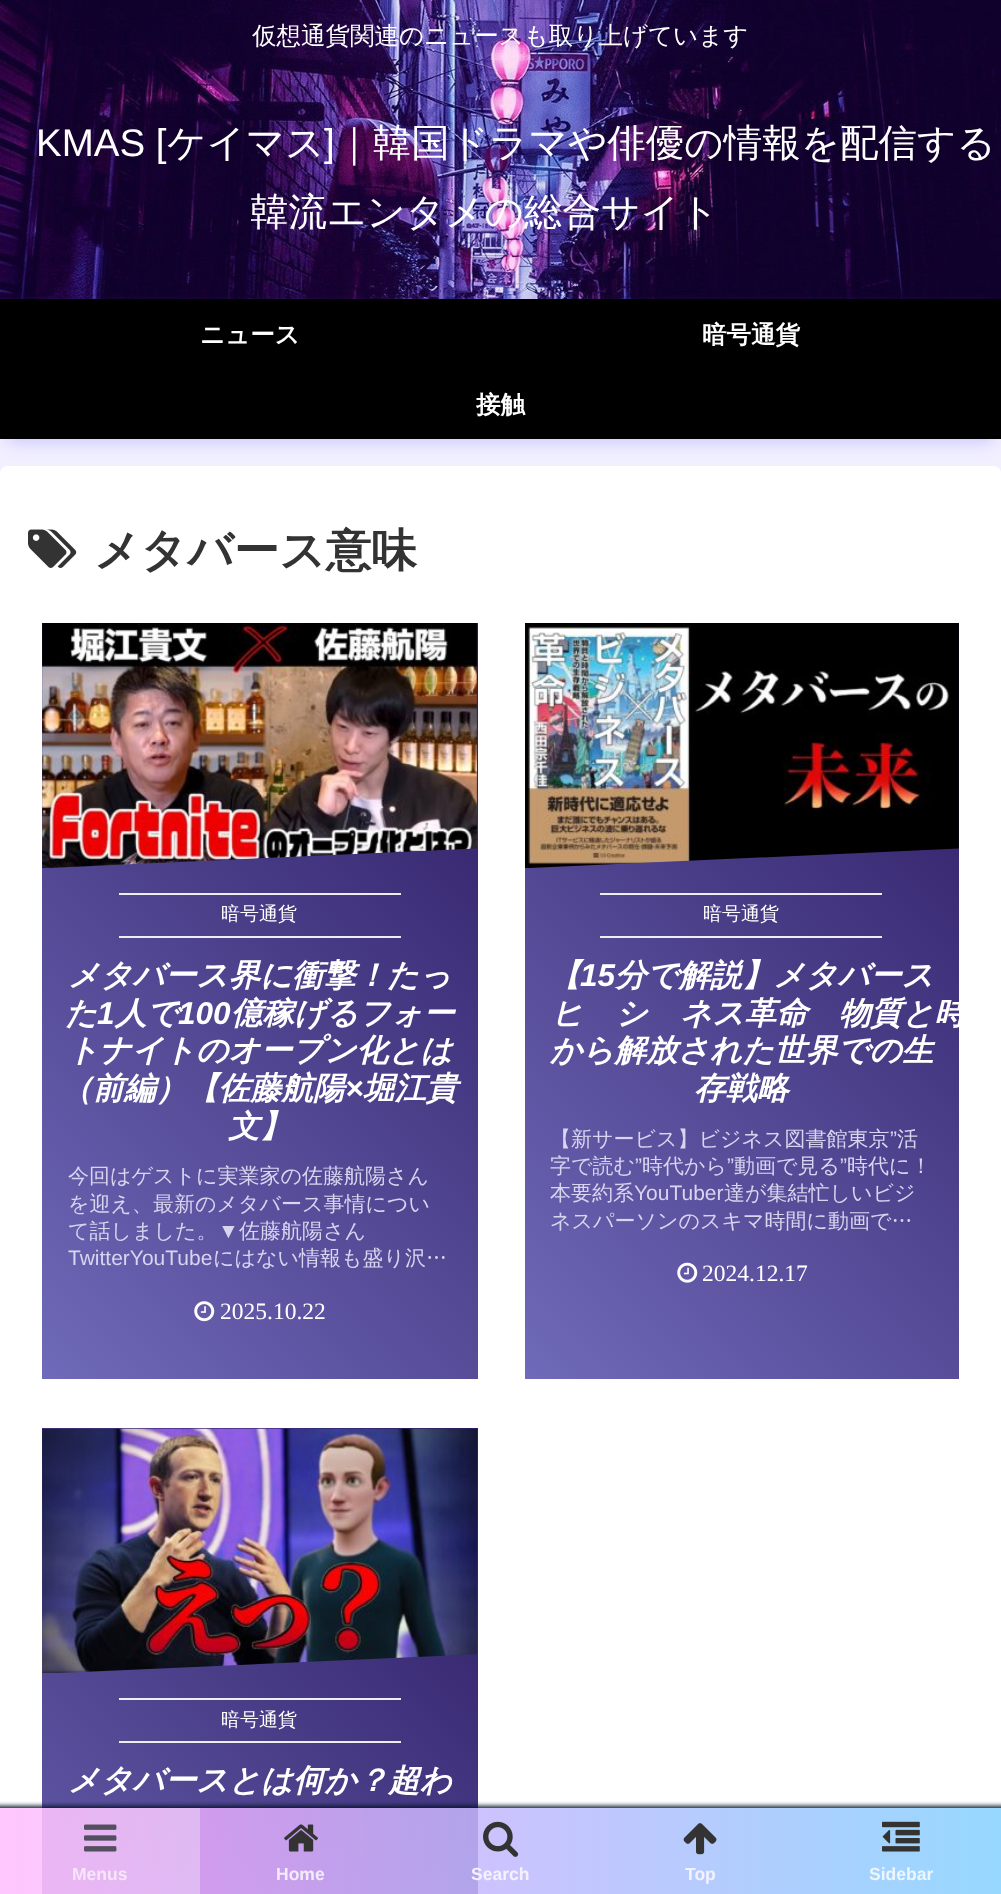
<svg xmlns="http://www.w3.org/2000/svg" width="1001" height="1894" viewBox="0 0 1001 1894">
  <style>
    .t1 { font: 500 24.5px WenQuanYi Zen Hei; fill: #fff; }
    .t2 { font: 38.5px Liberation Sans; fill: #fff; }
    .t3 { font: 500 38.5px WenQuanYi Zen Hei; fill: #fff; }
    .t4 { font: bold 24.5px WenQuanYi Zen Hei; fill: #fff; }
    .t5 { font: bold 45.5px WenQuanYi Zen Hei; fill: #333; }
    .t6 { font: 500 19px WenQuanYi Zen Hei; fill: #fff; }
    .t7 { font: italic bold 31.5px WenQuanYi Zen Hei; fill: #fff; }
    .t8 { font: italic bold 31.5px Liberation Sans; fill: #fff; }
    .t9 { font: 500 21px WenQuanYi Zen Hei; fill: #d7d5ef; }
    .t10 { font: 21px Liberation Sans; fill: #d7d5ef; }
    .t11 { font: 23.5px Liberation Serif; fill: #fff; }
    .t12 { font: bold 17.5px Liberation Sans; fill: #f6e5fb; }
    .t13 { font: bold 17.5px Liberation Sans; fill: #f4ecfc; }
    .t14 { font: bold 17.5px Liberation Sans; fill: #f4f2fe; }
    .t15 { font: bold 17.5px Liberation Sans; fill: #ecf6ff; }
  </style>
  <defs>
    <linearGradient id="g1" gradientUnits="userSpaceOnUse" x1="558" y1="703" x2="-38" y2="1299"><stop offset="0.02" stop-color="#2e1c64"/><stop offset="1" stop-color="#6f6ab9"/></linearGradient>
    <linearGradient id="g2" gradientUnits="userSpaceOnUse" x1="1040" y1="703" x2="445" y2="1299"><stop offset="0.02" stop-color="#2e1c64"/><stop offset="1" stop-color="#6f6ab9"/></linearGradient>
    <linearGradient id="g3" gradientUnits="userSpaceOnUse" x1="549" y1="1499" x2="-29" y2="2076"><stop offset="0.02" stop-color="#2e1c64"/><stop offset="1" stop-color="#6f6ab9"/></linearGradient>
    <clipPath id="clip1"><rect x="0" y="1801" width="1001" height="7"/></clipPath>
    <linearGradient id="g4" gradientUnits="userSpaceOnUse" x1="1001" y1="1852" x2="0" y2="1852"><stop offset="0" stop-color="#84d1ff" stop-opacity="0.85"/><stop offset="1" stop-color="#ffa0fc" stop-opacity="0.85"/></linearGradient>
  </defs>
  <rect width="100%" height="100%" fill="#f2f0ff"/>
  <image x="0" y="0" width="1001" height="299" href="images/1.png"/>
  <text x="252" y="44" class="t1">仮想通貨関連のニュースも取り上げています</text>
  <text x="36" y="156" class="t2">KMAS [</text>
  <text x="167" y="156" class="t3">ケイマス</text>
  <text x="324" y="156" class="t2">]</text>
  <text x="335" y="156" class="t3">｜韓国ドラマや俳優の情報を配信する</text>
  <text x="250" y="225" class="t3">韓流エンタメの総合サイト</text>
  <rect x="7" y="315" width="987" height="126" fill="#c7c0ff" filter="blur(9px)"/>
  <rect x="0" y="299" width="1001" height="140" fill="#000"/>
  <text x="200" y="343" class="t4">ニュース</text>
  <text x="702" y="343" class="t4">暗号通貨</text>
  <text x="476" y="413" class="t4">接触</text>
  <rect x="0" y="466" width="1001" height="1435" rx="7" fill="#fff"/>
  <image x="28" y="529" width="49" height="39" href="images/2.png"/>
  <text x="94" y="566" class="t5">メタバース意味</text>
  <rect x="42" y="623" width="436" height="756" fill="url(#g1)"/>
  <image x="42" y="623" width="435" height="245" href="images/3.png"/>
  <rect x="119" y="893" width="282" height="2" fill="#eee"/>
  <rect x="119" y="936" width="282" height="2" fill="#eee"/>
  <text x="221" y="920" class="t6">暗号通貨</text>
  <text x="68" y="986" class="t7">メタバース界に衝撃！たっ</text>
  <text x="65" y="1024" class="t7">た</text>
  <text x="97" y="1024" class="t8">1</text>
  <text x="115" y="1024" class="t7">人で</text>
  <text x="178" y="1024" class="t8">100</text>
  <text x="231" y="1024" class="t7">億稼げるフォー</text>
  <text x="67" y="1061" class="t7">トナイトのオープン化とは</text>
  <text x="61" y="1099" class="t7">（前編）【佐藤航陽</text>
  <text x="345" y="1099" class="t8">×</text>
  <text x="363" y="1099" class="t7">堀江貴</text>
  <text x="228" y="1137" class="t7">文】</text>
  <text x="68" y="1183" class="t9">今回はゲストに実業家の佐藤航陽さん</text>
  <text x="68" y="1211" class="t9">を迎え、最新のメタバース事情につい</text>
  <text x="68" y="1238" class="t9">て話しました。</text>
  <text x="218" y="1238" class="t10">▼</text>
  <text x="239" y="1238" class="t9">佐藤航陽さん</text>
  <text x="68" y="1265" class="t10">TwitterYouTube</text>
  <text x="213" y="1265" class="t9">にはない情報も盛り沢…</text>
  <image x="194" y="1301" width="21" height="21" href="images/4.png"/>
  <text x="220" y="1319" class="t11">2025.10.22</text>
  <rect x="525" y="623" width="434" height="756" fill="url(#g2)"/>
  <image x="525" y="623" width="434" height="245" href="images/5.png"/>
  <rect x="600" y="893" width="282" height="2" fill="#eee"/>
  <rect x="600" y="936" width="282" height="2" fill="#eee"/>
  <text x="703" y="920" class="t6">暗号通貨</text>
  <text x="549" y="986" class="t7">【</text>
  <text x="580" y="986" class="t8">15</text>
  <text x="615" y="986" class="t7">分で解説】メタバース</text>
  <text x="551" y="1024" class="t7">ビジネス革命　物質と時間</text>
  <text x="550" y="1061" class="t7">から解放された世界での生</text>
  <text x="694" y="1099" class="t7">存戦略</text>
  <text x="550" y="1146" class="t9">【新サービス】ビジネス図書館東京</text>
  <text x="890" y="1146" class="t10">”</text>
  <text x="897" y="1146" class="t9">活</text>
  <text x="550" y="1173" class="t9">字で読む</text>
  <text x="635" y="1173" class="t10">”</text>
  <text x="642" y="1173" class="t9">時代から</text>
  <text x="727" y="1173" class="t10">”</text>
  <text x="734" y="1173" class="t9">動画で見る</text>
  <text x="840" y="1173" class="t10">”</text>
  <text x="847" y="1173" class="t9">時代に！</text>
  <text x="550" y="1200" class="t9">本要約系</text>
  <text x="634" y="1200" class="t10">YouTuber</text>
  <text x="724" y="1200" class="t9">達が集結忙しいビジ</text>
  <text x="550" y="1228" class="t9">ネスパーソンのスキマ時間に動画で…</text>
  <image x="677" y="1262" width="21" height="21" href="images/6.png"/>
  <text x="702" y="1281" class="t11">2024.12.17</text>
  <rect x="42" y="1428" width="436" height="466" fill="url(#g3)"/>
  <image x="42" y="1428" width="435" height="245" href="images/7.png"/>
  <rect x="119" y="1698" width="282" height="2" fill="#eee"/>
  <rect x="119" y="1741" width="282" height="2" fill="#eee"/>
  <text x="221" y="1726" class="t6">暗号通貨</text>
  <text x="68" y="1791" class="t7">メタバースとは何か？超わ</text>
  <g clip-path="url(#clip1)">
    <rect x="-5" y="1806" width="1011" height="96" fill="#041329" filter="blur(2.5px)"/>
  </g>
  <rect x="0" y="1808" width="1001" height="86" fill="url(#g4)"/>
  <rect x="0" y="1808" width="200" height="86" fill="#ffffff4d"/>
  <image x="84" y="1824" width="33" height="28" href="images/8.png"/>
  <text x="72" y="1880" class="t12">Menus</text>
  <image x="284" y="1824" width="34" height="28" href="images/9.png"/>
  <text x="276" y="1880" class="t13">Home</text>
  <image x="483" y="1821" width="36" height="36" href="images/10.png"/>
  <text x="471" y="1880" class="t14">Search</text>
  <image x="683" y="1823" width="34" height="32" href="images/11.png"/>
  <text x="685" y="1880" class="t14">Top</text>
  <image x="882" y="1821" width="38" height="31" href="images/12.png"/>
  <text x="869" y="1880" class="t15">Sidebar</text>
</svg>
